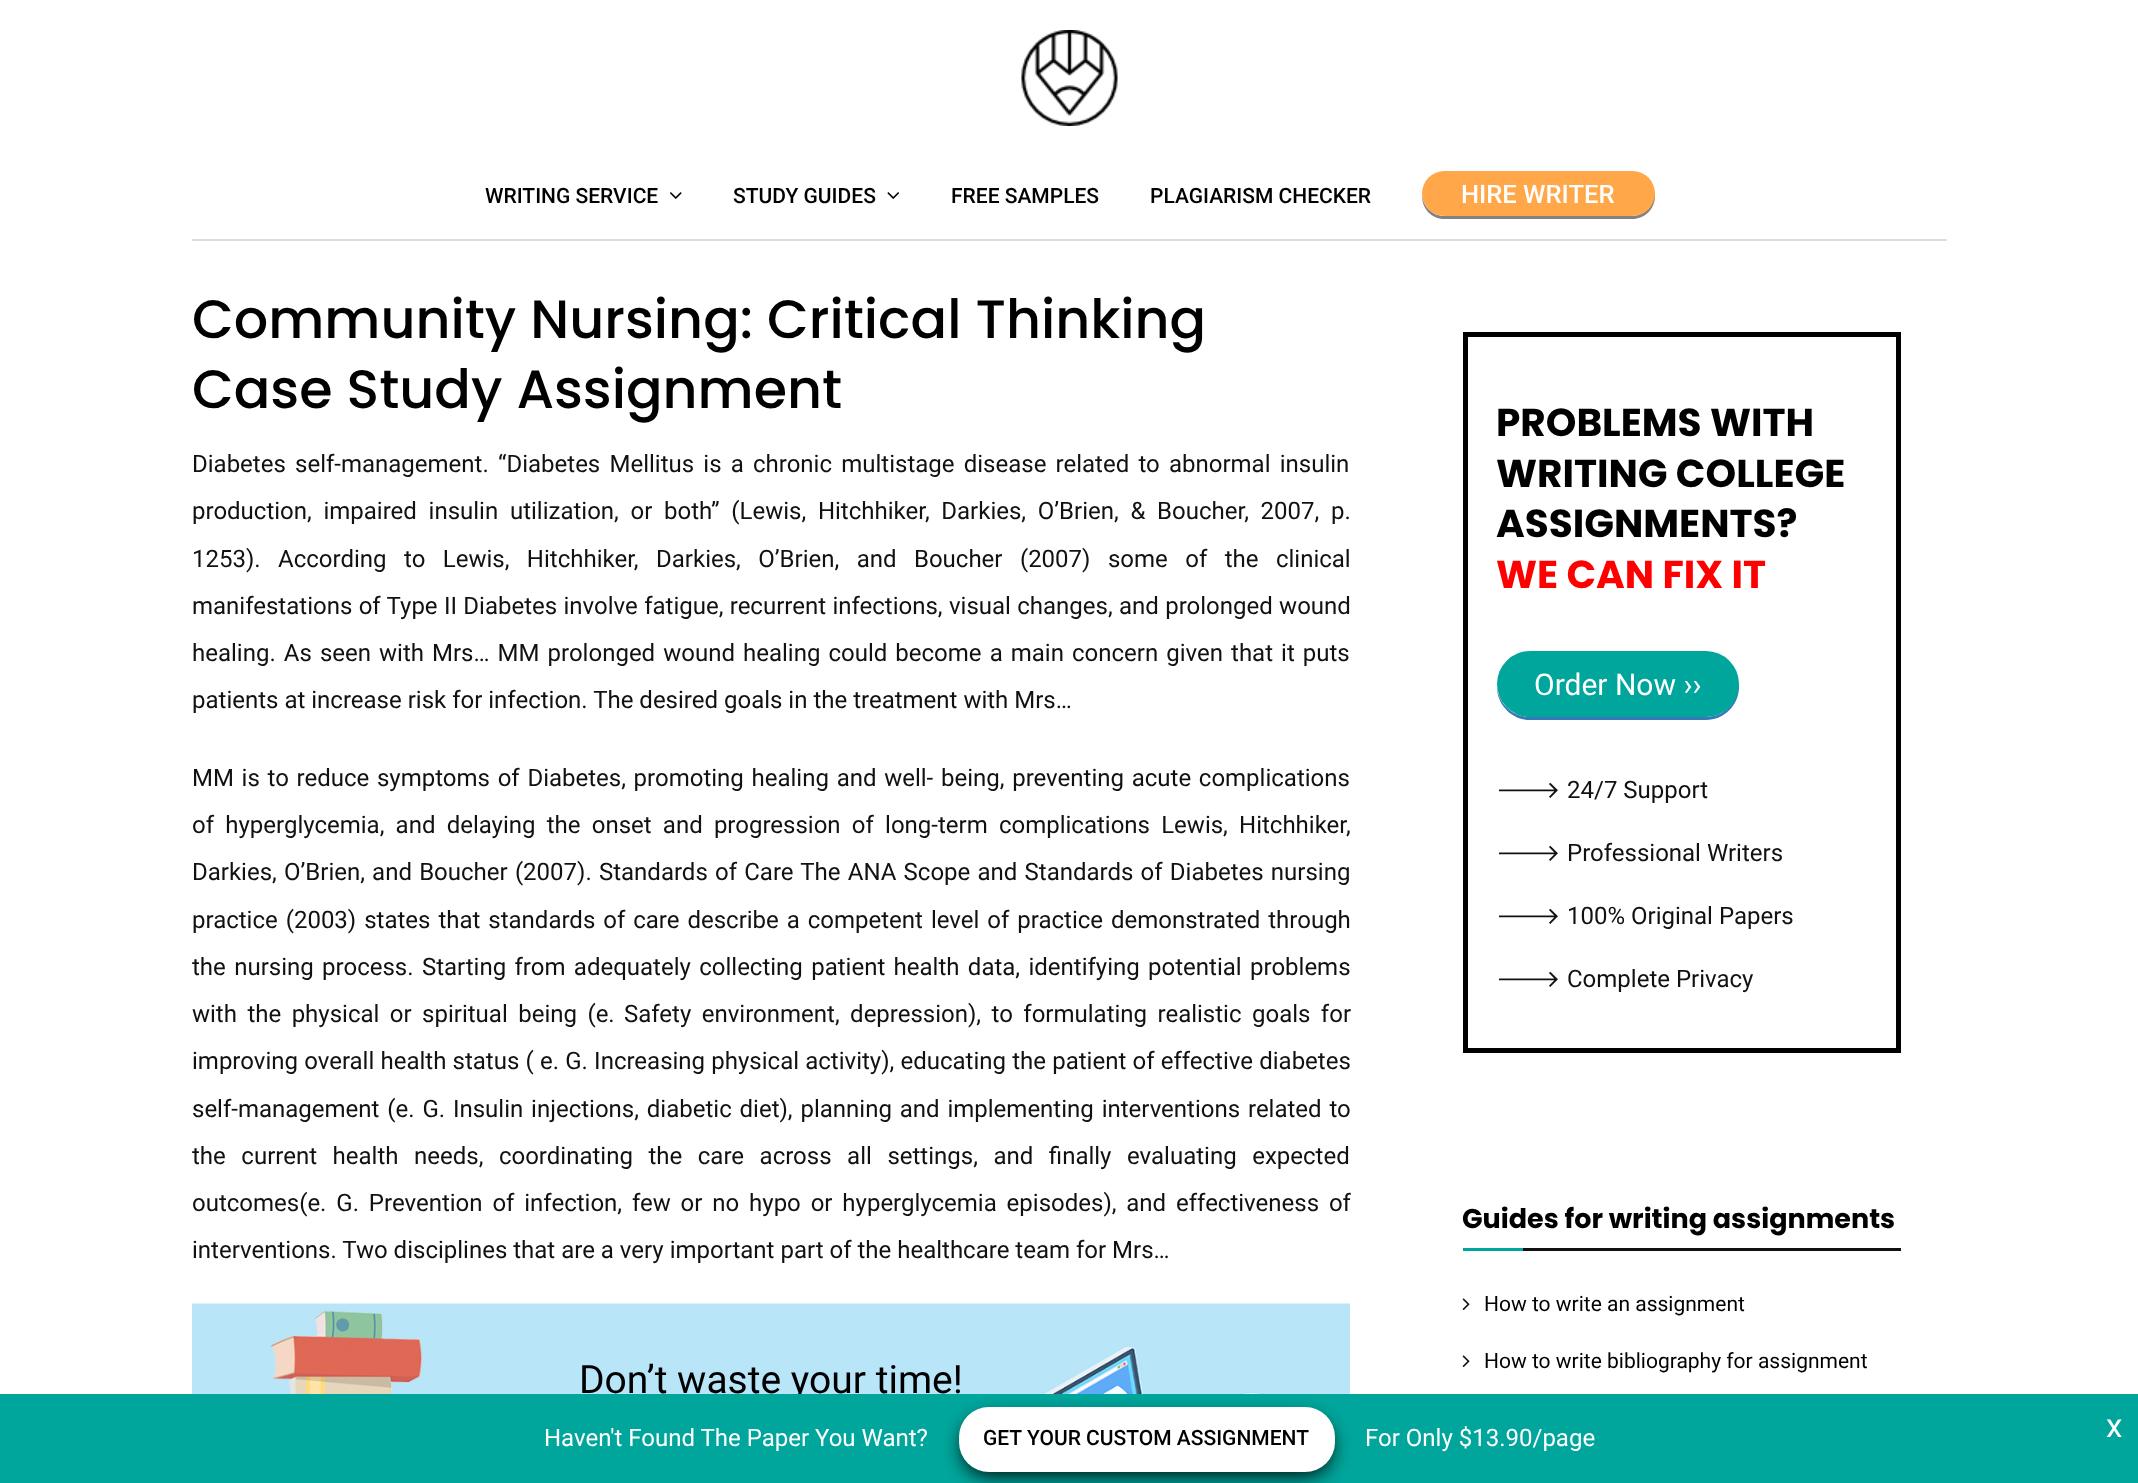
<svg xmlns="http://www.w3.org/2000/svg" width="2138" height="1483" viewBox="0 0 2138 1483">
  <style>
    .t1 { font: 500 21px Roboto; fill: #000; }
    .t2 { font: 500 25.5px Roboto; fill: #fff; }
    .t3 { font: 500 54px Poppins; fill: #000; }
    .t4 { font: 24px Roboto; fill: #111; }
    .t5 { font: 39px Roboto; fill: #000; }
    .t6 { font: bold 39px Poppins; fill: #000; }
    .t7 { font: bold 39px Poppins; fill: #f00; }
    .t8 { font: 30px Roboto; fill: #fff; }
    .t9 { font: 24px Inter; fill: #111; }
    .t10 { font: bold 27px Poppins; fill: #000; }
    .t11 { font: 21px Roboto; fill: #000; }
    .t12 { font: 24px Roboto; fill: #fff; }
    .t13 { font: 33px Roboto; fill: #fff; }
  </style>
  <rect width="100%" height="100%" fill="#fff"/>
  <image x="1021" y="30" width="97" height="96" href="images/1.png"/>
  <rect x="192" y="239" width="1755" height="2" fill="#dcdcdc"/>
  <text x="485" y="203" class="t1">WRITING SERVICE</text>
  <image x="670" y="192" width="12" height="7" href="images/2.png"/>
  <text x="733" y="203" class="t1">STUDY GUIDES</text>
  <image x="887" y="192" width="12" height="7" href="images/3.png"/>
  <text x="951" y="203" class="t1">FREE SAMPLES</text>
  <text x="1150" y="203" class="t1">PLAGIARISM CHECKER</text>
  <path d="M1422 195V196C1422 209 1432 219 1444 219H1632C1645 219 1655 209 1655 196L1654 191V194C1654 206 1644 216 1632 216H1444C1433 216 1423 207 1422 195Z" fill="#878080"/>
  <rect x="1422" y="171" width="233" height="45" rx="22.5" fill="#ffa749"/>
  <text x="1461" y="203" class="t2">HIRE WRITER</text>
  <text x="192" y="338" class="t3">Community Nursing: Critical Thinking</text>
  <text x="192" y="408" class="t3">Case Study Assignment</text>
  <text x="192" y="472" word-spacing="3.25" class="t4">Diabetes self-management. “Diabetes Mellitus is a chronic multistage disease related to abnormal insulin</text>
  <text x="192" y="519" word-spacing="5.75" class="t4">production, impaired insulin utilization, or both” (Lewis, Hitchhiker, Darkies, O’Brien, &amp; Boucher, 2007, p.</text>
  <text x="192" y="567" word-spacing="11.5" class="t4">1253). According to Lewis, Hitchhiker, Darkies, O’Brien, and Boucher (2007) some of the clinical</text>
  <text x="192" y="614" word-spacing="0.4" class="t4">manifestations of Type II Diabetes involve fatigue, recurrent infections, visual changes, and prolonged wound</text>
  <text x="192" y="661" word-spacing="2.1" class="t4">healing. As seen with Mrs… MM prolonged wound healing could become a main concern given that it puts</text>
  <text x="192" y="708" class="t4">patients at increase risk for infection. The desired goals in the treatment with Mrs…</text>
  <text x="192" y="786" word-spacing="1.75" class="t4">MM is to reduce symptoms of Diabetes, promoting healing and well- being, preventing acute complications</text>
  <text x="192" y="833" word-spacing="5.25" class="t4">of hyperglycemia, and delaying the onset and progression of long-term complications Lewis, Hitchhiker,</text>
  <text x="192" y="880" word-spacing="1.25" class="t4">Darkies, O’Brien, and Boucher (2007). Standards of Care The ANA Scope and Standards of Diabetes nursing</text>
  <text x="192" y="928" word-spacing="2" class="t4">practice (2003) states that standards of care describe a competent level of practice demonstrated through</text>
  <text x="192" y="975" word-spacing="2.4" class="t4">the nursing process. Starting from adequately collecting patient health data, identifying potential problems</text>
  <text x="192" y="1022" word-spacing="4.5" class="t4">with the physical or spiritual being (e.</text>
  <text x="624" y="1022" word-spacing="4.5" class="t4">Safety environment, depression), to formulating realistic goals for</text>
  <text x="192" y="1069" word-spacing="0.25" class="t4">improving overall health status ( e. G. Increasing physical activity), educating the patient of effective diabetes</text>
  <text x="192" y="1117" word-spacing="1.9" class="t4">self-management (e. G. Insulin injections, diabetic diet), planning and implementing interventions related to</text>
  <text x="192" y="1164" word-spacing="9.6" class="t4">the current health needs, coordinating the care across all settings, and finally evaluating expected</text>
  <text x="192" y="1211" word-spacing="3.9" class="t4">outcomes(e. G. Prevention of infection, few or no hypo or hyperglycemia episodes), and effectiveness of</text>
  <text x="192" y="1258" class="t4">interventions. Two disciplines that are a very important part of the healthcare team for Mrs…</text>
  <image x="192" y="1303" width="1158" height="91" href="images/4.png"/>
  <text x="579" y="1393" class="t5">Don’t waste your time!</text>
  <rect x="1465.5" y="334.5" width="433" height="716" fill="none" stroke="#000" stroke-width="5"/>
  <text x="1496" y="436" class="t6">PROBLEMS WITH</text>
  <text x="1496" y="487" class="t6">WRITING COLLEGE</text>
  <text x="1496" y="537" class="t6">ASSIGNMENTS?</text>
  <text x="1496" y="588" class="t7">WE CAN FIX IT</text>
  <path d="M1497 686V687C1497 705 1512 720 1530 720H1706C1724 720 1739 705 1739 687L1738 680V684C1738 702 1724 717 1706 717H1530C1512 717 1498 703 1497 686Z" fill="#337ab7"/>
  <rect x="1497" y="651" width="242" height="66" rx="33" fill="#00a69c"/>
  <text x="1534" y="695" class="t8">Order Now ››</text>
  <text x="1496" y="798" class="t9">🡒</text>
  <text x="1567" y="798" class="t4">24/7 Support</text>
  <text x="1496" y="861" class="t9">🡒</text>
  <text x="1567" y="861" class="t4">Professional Writers</text>
  <text x="1496" y="924" class="t9">🡒</text>
  <text x="1567" y="924" class="t4">100% Original Papers</text>
  <text x="1496" y="987" class="t9">🡒</text>
  <text x="1567" y="987" class="t4">Complete Privacy</text>
  <rect x="1523" y="1248" width="378" height="3" fill="#111"/>
  <text x="1462" y="1228" class="t10">Guides for writing assignments</text>
  <rect x="1463" y="1248" width="60" height="3" fill="#00a69c"/>
  <image x="1462" y="1298" width="8" height="12" href="images/5.png"/>
  <text x="1484" y="1311" class="t11">How to write an assignment</text>
  <image x="1462" y="1355" width="8" height="12" href="images/5.png"/>
  <text x="1484" y="1368" class="t11">How to write bibliography for assignment</text>
  <rect x="0" y="1394" width="2138" height="89" fill="#00a69c"/>
  <text x="544" y="1446" class="t12">Haven't Found The Paper You Want?</text>
  <rect x="963" y="1419" width="368" height="56" rx="26" fill="#000" filter="blur(10px)"/>
  <rect x="959" y="1407" width="376" height="65" rx="30" fill="#fff"/>
  <text x="983" y="1445" class="t1">GET YOUR CUSTOM ASSIGNMENT</text>
  <text x="1365" y="1446" class="t12">For Only $13.90/page</text>
  <text x="2106" y="1437" class="t13">x</text>
</svg>
